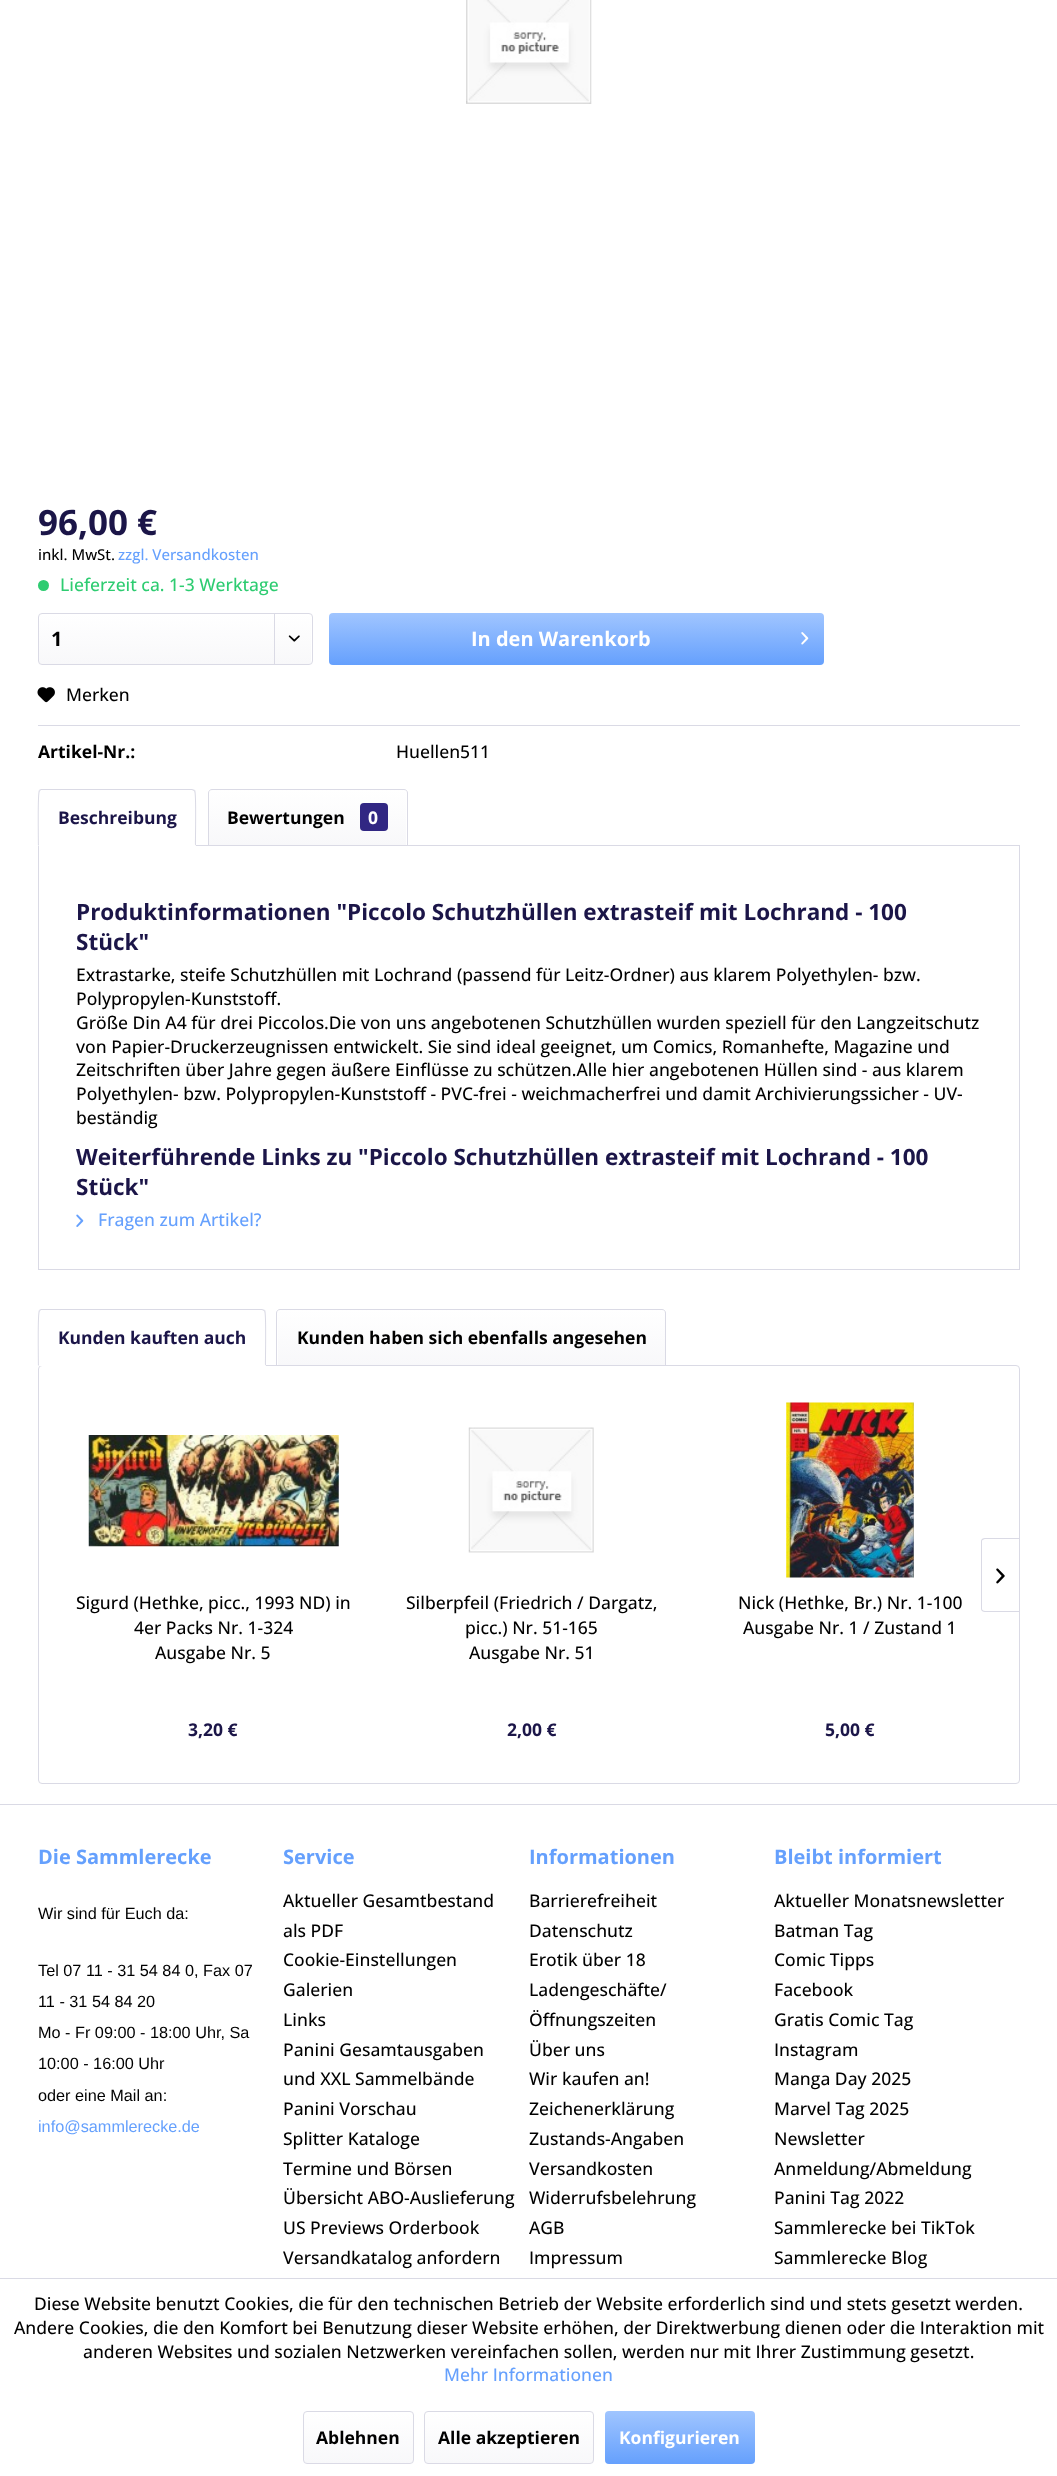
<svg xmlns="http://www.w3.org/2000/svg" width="1057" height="2476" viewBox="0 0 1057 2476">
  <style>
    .t1 { font: bold 35px Open Sans; fill: #1b1548; }
    .t2 { font: 500 15px Open Sans; fill: #000; }
    .t3 { font: 500 15px Open Sans; fill: #65a0fd; }
    .t4 { font: 500 17.5px Open Sans; fill: #2ecc71; }
    .t5 { font: bold 20px Open Sans; fill: #000; }
    .t6 { font: bold 20px Open Sans; fill: #fff; }
    .t7 { font: 500 17.5px Open Sans; fill: #000; }
    .t8 { font: bold 17.5px Open Sans; fill: #000; }
    .t9 { font: bold 17.5px Open Sans; fill: #1b1548; }
    .t10 { font: bold 17.5px Open Sans; fill: #fff; }
    .t11 { font: bold 22.5px Open Sans; fill: #1b1548; }
    .t12 { font: 500 17.5px Open Sans; fill: #65a0fd; }
    .t13 { font: bold 20px Open Sans; fill: #65a0fd; }
    .t14 { font: 16.25px Liberation Sans; fill: #000; }
    .t15 { font: 16.25px Liberation Sans; fill: #65a0fd; }
  </style>
  <defs>
    <linearGradient id="g1" gradientUnits="userSpaceOnUse" x1="175" y1="614" x2="175" y2="664"><stop offset="0" stop-color="#fff"/><stop offset="1" stop-color="#f8f8fa"/></linearGradient>
    <linearGradient id="g2" gradientUnits="userSpaceOnUse" x1="576" y1="613" x2="576" y2="665"><stop offset="0" stop-color="#a0c5ff"/><stop offset="1" stop-color="#65a0fd"/></linearGradient>
    <linearGradient id="g3" gradientUnits="userSpaceOnUse" x1="308" y1="790" x2="308" y2="845"><stop offset="0" stop-color="#fff"/><stop offset="1" stop-color="#f8f8fa"/></linearGradient>
    <linearGradient id="g4" gradientUnits="userSpaceOnUse" x1="471" y1="1310" x2="471" y2="1365"><stop offset="0" stop-color="#fff"/><stop offset="1" stop-color="#f8f8fa"/></linearGradient>
    <linearGradient id="g5" gradientUnits="userSpaceOnUse" x1="358" y1="2413" x2="358" y2="2463"><stop offset="0" stop-color="#fff"/><stop offset="1" stop-color="#f8f8fa"/></linearGradient>
    <linearGradient id="g6" gradientUnits="userSpaceOnUse" x1="509" y1="2413" x2="509" y2="2463"><stop offset="0" stop-color="#fff"/><stop offset="1" stop-color="#f8f8fa"/></linearGradient>
    <linearGradient id="g7" gradientUnits="userSpaceOnUse" x1="680" y1="2411" x2="680" y2="2464"><stop offset="0" stop-color="#a0c5ff"/><stop offset="1" stop-color="#65a0fd"/></linearGradient>
  </defs>
  <rect width="100%" height="100%" fill="#fff"/>
  <image x="466" y="0" width="126" height="104" href="images/1.png"/>
  <text x="38" y="535" class="t1">96,00 €</text>
  <text x="38" y="560" class="t2">inkl. MwSt.</text>
  <text x="118" y="560" class="t3">zzgl. Versandkosten</text>
  <circle cx="43.5" cy="585.5" r="5.5" fill="#2ecc71"/>
  <text x="60" y="591" class="t4">Lieferzeit ca. 1-3 Werktage</text>
  <rect x="39" y="614" width="272" height="50" rx="2.5" fill="url(#g1)"/>
  <rect x="38.5" y="613.5" width="274" height="51" rx="3.5" fill="none" stroke="#dadae5"/>
  <text x="51" y="646" class="t5">1</text>
  <rect x="274" y="614" width="1" height="50" fill="#dadae5"/>
  <image x="288" y="635" width="12" height="7" href="images/2.png"/>
  <rect x="329" y="613" width="495" height="52" rx="4" fill="url(#g2)"/>
  <text x="471" y="646" class="t6">In den Warenkorb</text>
  <image x="801" y="632" width="8" height="13" href="images/3.png"/>
  <rect x="38" y="725" width="982" height="1" fill="#dadae5"/>
  <image x="37" y="687" width="18" height="16" href="images/4.png"/>
  <text x="66" y="701" class="t7">Merken</text>
  <text x="38" y="758" class="t8">Artikel-Nr.:</text>
  <text x="396" y="758" class="t7">Huellen511</text>
  <rect x="38.5" y="845.5" width="981" height="424" fill="none" stroke="#dadae5"/>
  <path d="M42 789H192C194 789 196 791 196 793V846H38V793C38 791 40 789 42 789Z" fill="#fff"/>
  <path d="M41 789L39 790L40 791L41 790H192L194 791L195 790L192 789Z" fill="#dadae5"/>
  <path d="M196 846C196 840 197 791 195 790L194 791C196 792 195 839 195 845Z" fill="#dadae5"/>
  <path d="M196 846L195 845H39L38 846Z" fill="#fff"/>
  <path d="M39 790C37 792 38 839 38 846L39 845C39 839 38 792 40 791Z" fill="#dadae5"/>
  <text x="58" y="824" class="t9">Beschreibung</text>
  <path d="M211.5 790H403.5C405 790 406 791 406 792.5V845H209V792.5C209 791 210 790 211.5 790Z" fill="url(#g3)"/>
  <path d="M212 789.5H404C406 789.5 407.5 791 407.5 793V845.5H208.5V793C208.5 791 210 789.5 212 789.5Z" fill="none" stroke="#dadae5"/>
  <text x="227" y="824" class="t8">Bewertungen</text>
  <rect x="360" y="803" width="28" height="28" rx="4" fill="#312783"/>
  <text x="368" y="824" class="t10">0</text>
  <text x="76" y="920" class="t11">Produktinformationen "Piccolo Schutzhüllen extrasteif mit Lochrand - 100</text>
  <text x="76" y="950" class="t11">Stück"</text>
  <text x="76" y="981" class="t7">Extrastarke, steife Schutzhüllen mit Lochrand (passend für Leitz-Ordner) aus klarem Polyethylen- bzw.</text>
  <text x="76" y="1005" class="t7">Polypropylen-Kunststoff.</text>
  <text x="76" y="1029" class="t7">Größe Din A4 für drei Piccolos.Die von uns angebotenen Schutzhüllen wurden speziell für den Langzeitschutz</text>
  <text x="76" y="1053" class="t7">von Papier-Druckerzeugnissen entwickelt. Sie sind ideal geeignet, um Comics, Romanhefte, Magazine und</text>
  <text x="76" y="1076" class="t7">Zeitschriften über Jahre gegen äußere Einflüsse zu schützen.Alle hier angebotenen Hüllen sind - aus klarem</text>
  <text x="76" y="1100" class="t7">Polyethylen- bzw. Polypropylen-Kunststoff - PVC-frei - weichmacherfrei und damit Archivierungssicher - UV-</text>
  <text x="76" y="1124" class="t7">beständig</text>
  <text x="76" y="1165" class="t11">Weiterführende Links zu "Piccolo Schutzhüllen extrasteif mit Lochrand - 100</text>
  <text x="76" y="1195" class="t11">Stück"</text>
  <image x="76" y="1214" width="8" height="13" href="images/5.png"/>
  <text x="98" y="1226" class="t12">Fragen zum Artikel?</text>
  <rect x="38.5" y="1365.5" width="981" height="418" rx="3.5" fill="none" stroke="#dadae5"/>
  <path d="M42 1309H262C264 1309 266 1311 266 1313V1366H38V1313C38 1311 40 1309 42 1309Z" fill="#fff"/>
  <path d="M41 1309L39 1310L40 1311L41 1310H262L264 1311L265 1310L262 1309Z" fill="#dadae5"/>
  <path d="M266 1366C266 1360 267 1311 265 1310L264 1311C266 1312 265 1359 265 1365Z" fill="#dadae5"/>
  <path d="M266 1366L265 1365H39L38 1366Z" fill="#fff"/>
  <path d="M39 1310C37 1312 38 1359 38 1366L39 1365C39 1359 38 1312 40 1311Z" fill="#dadae5"/>
  <text x="58" y="1344" class="t9">Kunden kauften auch</text>
  <path d="M280.5 1310H662.5C664 1310 665 1311 665 1312.5V1365H278V1312.5C278 1311 279 1310 280.5 1310Z" fill="url(#g4)"/>
  <path d="M280 1309.5H662C664 1309.5 665.5 1311 665.5 1313V1365.5H276.5V1313C276.5 1311 278 1309.5 280 1309.5Z" fill="none" stroke="#dadae5"/>
  <text x="297" y="1344" class="t8">Kunden haben sich ebenfalls angesehen</text>
  <path d="M985 1538H1019V1612H985C983 1612 981 1611 981 1609V1541C981 1539 983 1538 985 1538ZM985 1539H1019V1611H985C984 1611 982 1610 982 1609V1541C982 1540 984 1539 985 1539Z" fill="#dadae5" fill-rule="evenodd"/>
  <image x="996" y="1568" width="9" height="16" href="images/6.png"/>
  <image x="88" y="1435" width="251" height="112" href="images/7.png"/>
  <text x="76" y="1609" class="t7">Sigurd (Hethke, picc., 1993 ND) in</text>
  <text x="134" y="1634" class="t7">4er Packs Nr. 1-324</text>
  <text x="155" y="1659" class="t7">Ausgabe Nr. 5</text>
  <text x="188" y="1736" class="t9">3,20 €</text>
  <image x="468" y="1427" width="126" height="126" href="images/8.png"/>
  <text x="406" y="1609" class="t7">Silberpfeil (Friedrich / Dargatz,</text>
  <text x="465" y="1634" class="t7">picc.) Nr. 51-165</text>
  <text x="469" y="1659" class="t7">Ausgabe Nr. 51</text>
  <text x="507" y="1736" class="t9">2,00 €</text>
  <image x="786" y="1402" width="128" height="176" href="images/9.png"/>
  <text x="738" y="1609" class="t7">Nick (Hethke, Br.) Nr. 1-100</text>
  <text x="743" y="1634" class="t7">Ausgabe Nr. 1 / Zustand 1</text>
  <text x="825" y="1736" class="t9">5,00 €</text>
  <rect x="0" y="1804" width="1057" height="1" fill="#dadae5"/>
  <text x="38" y="1864" class="t13">Die Sammlerecke</text>
  <text x="38" y="1919" class="t14">Wir sind für Euch da:</text>
  <text x="38" y="1976" class="t14">Tel 07 11 - 31 54 84 0, Fax 07</text>
  <text x="38" y="2007" class="t14">11 - 31 54 84 20</text>
  <text x="38" y="2038" class="t14">Mo - Fr 09:00 - 18:00 Uhr, Sa</text>
  <text x="38" y="2069" class="t14">10:00 - 16:00 Uhr</text>
  <text x="38" y="2101" class="t14">oder eine Mail an:</text>
  <text x="38" y="2132" class="t15">info@sammlerecke.de</text>
  <text x="283" y="1864" class="t13">Service</text>
  <text x="283" y="1907" class="t7">Aktueller Gesamtbestand</text>
  <text x="283" y="1937" class="t7">als PDF</text>
  <text x="283" y="1966" class="t7">Cookie-Einstellungen</text>
  <text x="283" y="1996" class="t7">Galerien</text>
  <text x="283" y="2026" class="t7">Links</text>
  <text x="283" y="2056" class="t7">Panini Gesamtausgaben</text>
  <text x="283" y="2085" class="t7">und XXL Sammelbände</text>
  <text x="283" y="2115" class="t7">Panini Vorschau</text>
  <text x="283" y="2145" class="t7">Splitter Kataloge</text>
  <text x="283" y="2175" class="t7">Termine und Börsen</text>
  <text x="283" y="2204" class="t7">Übersicht ABO-Auslieferung</text>
  <text x="283" y="2234" class="t7">US Previews Orderbook</text>
  <text x="283" y="2264" class="t7">Versandkatalog anfordern</text>
  <text x="529" y="1864" class="t13">Informationen</text>
  <text x="529" y="1907" class="t7">Barrierefreiheit</text>
  <text x="529" y="1937" class="t7">Datenschutz</text>
  <text x="529" y="1966" class="t7">Erotik über 18</text>
  <text x="529" y="1996" class="t7">Ladengeschäfte/</text>
  <text x="529" y="2026" class="t7">Öffnungszeiten</text>
  <text x="529" y="2056" class="t7">Über uns</text>
  <text x="529" y="2085" class="t7">Wir kaufen an!</text>
  <text x="529" y="2115" class="t7">Zeichenerklärung</text>
  <text x="529" y="2145" class="t7">Zustands-Angaben</text>
  <text x="529" y="2175" class="t7">Versandkosten</text>
  <text x="529" y="2204" class="t7">Widerrufsbelehrung</text>
  <text x="529" y="2234" class="t7">AGB</text>
  <text x="529" y="2264" class="t7">Impressum</text>
  <text x="774" y="1864" class="t13">Bleibt informiert</text>
  <text x="774" y="1907" class="t7">Aktueller Monatsnewsletter</text>
  <text x="774" y="1937" class="t7">Batman Tag</text>
  <text x="774" y="1966" class="t7">Comic Tipps</text>
  <text x="774" y="1996" class="t7">Facebook</text>
  <text x="774" y="2026" class="t7">Gratis Comic Tag</text>
  <text x="774" y="2056" class="t7">Instagram</text>
  <text x="774" y="2085" class="t7">Manga Day 2025</text>
  <text x="774" y="2115" class="t7">Marvel Tag 2025</text>
  <text x="774" y="2145" class="t7">Newsletter</text>
  <text x="774" y="2175" class="t7">Anmeldung/Abmeldung</text>
  <text x="774" y="2204" class="t7">Panini Tag 2022</text>
  <text x="774" y="2234" class="t7">Sammlerecke bei TikTok</text>
  <text x="774" y="2264" class="t7">Sammlerecke Blog</text>
  <rect x="0" y="2278" width="1057" height="1" fill="#dadae5"/>
  <text x="34" y="2310" class="t7">Diese Website benutzt Cookies, die für den technischen Betrieb der Website erforderlich sind und stets gesetzt werden.</text>
  <text x="14" y="2334" class="t7">Andere Cookies, die den Komfort bei Benutzung dieser Website erhöhen, der Direktwerbung dienen oder die Interaktion mit</text>
  <text x="83" y="2358" class="t7">anderen Websites und sozialen Netzwerken vereinfachen sollen, werden nur mit Ihrer Zustimmung gesetzt.</text>
  <text x="444" y="2381" class="t12">Mehr Informationen</text>
  <rect x="304" y="2413" width="109" height="50" rx="2.5" fill="url(#g5)"/>
  <rect x="303.5" y="2411.5" width="110" height="52" rx="3.5" fill="none" stroke="#dadae5"/>
  <text x="316" y="2444" class="t8">Ablehnen</text>
  <rect x="425" y="2413" width="168" height="50" rx="2.5" fill="url(#g6)"/>
  <rect x="424.5" y="2411.5" width="169" height="52" rx="3.5" fill="none" stroke="#dadae5"/>
  <text x="438" y="2444" class="t8">Alle akzeptieren</text>
  <rect x="605" y="2411" width="150" height="53" rx="4" fill="url(#g7)"/>
  <text x="619" y="2444" class="t10">Konfigurieren</text>
</svg>
